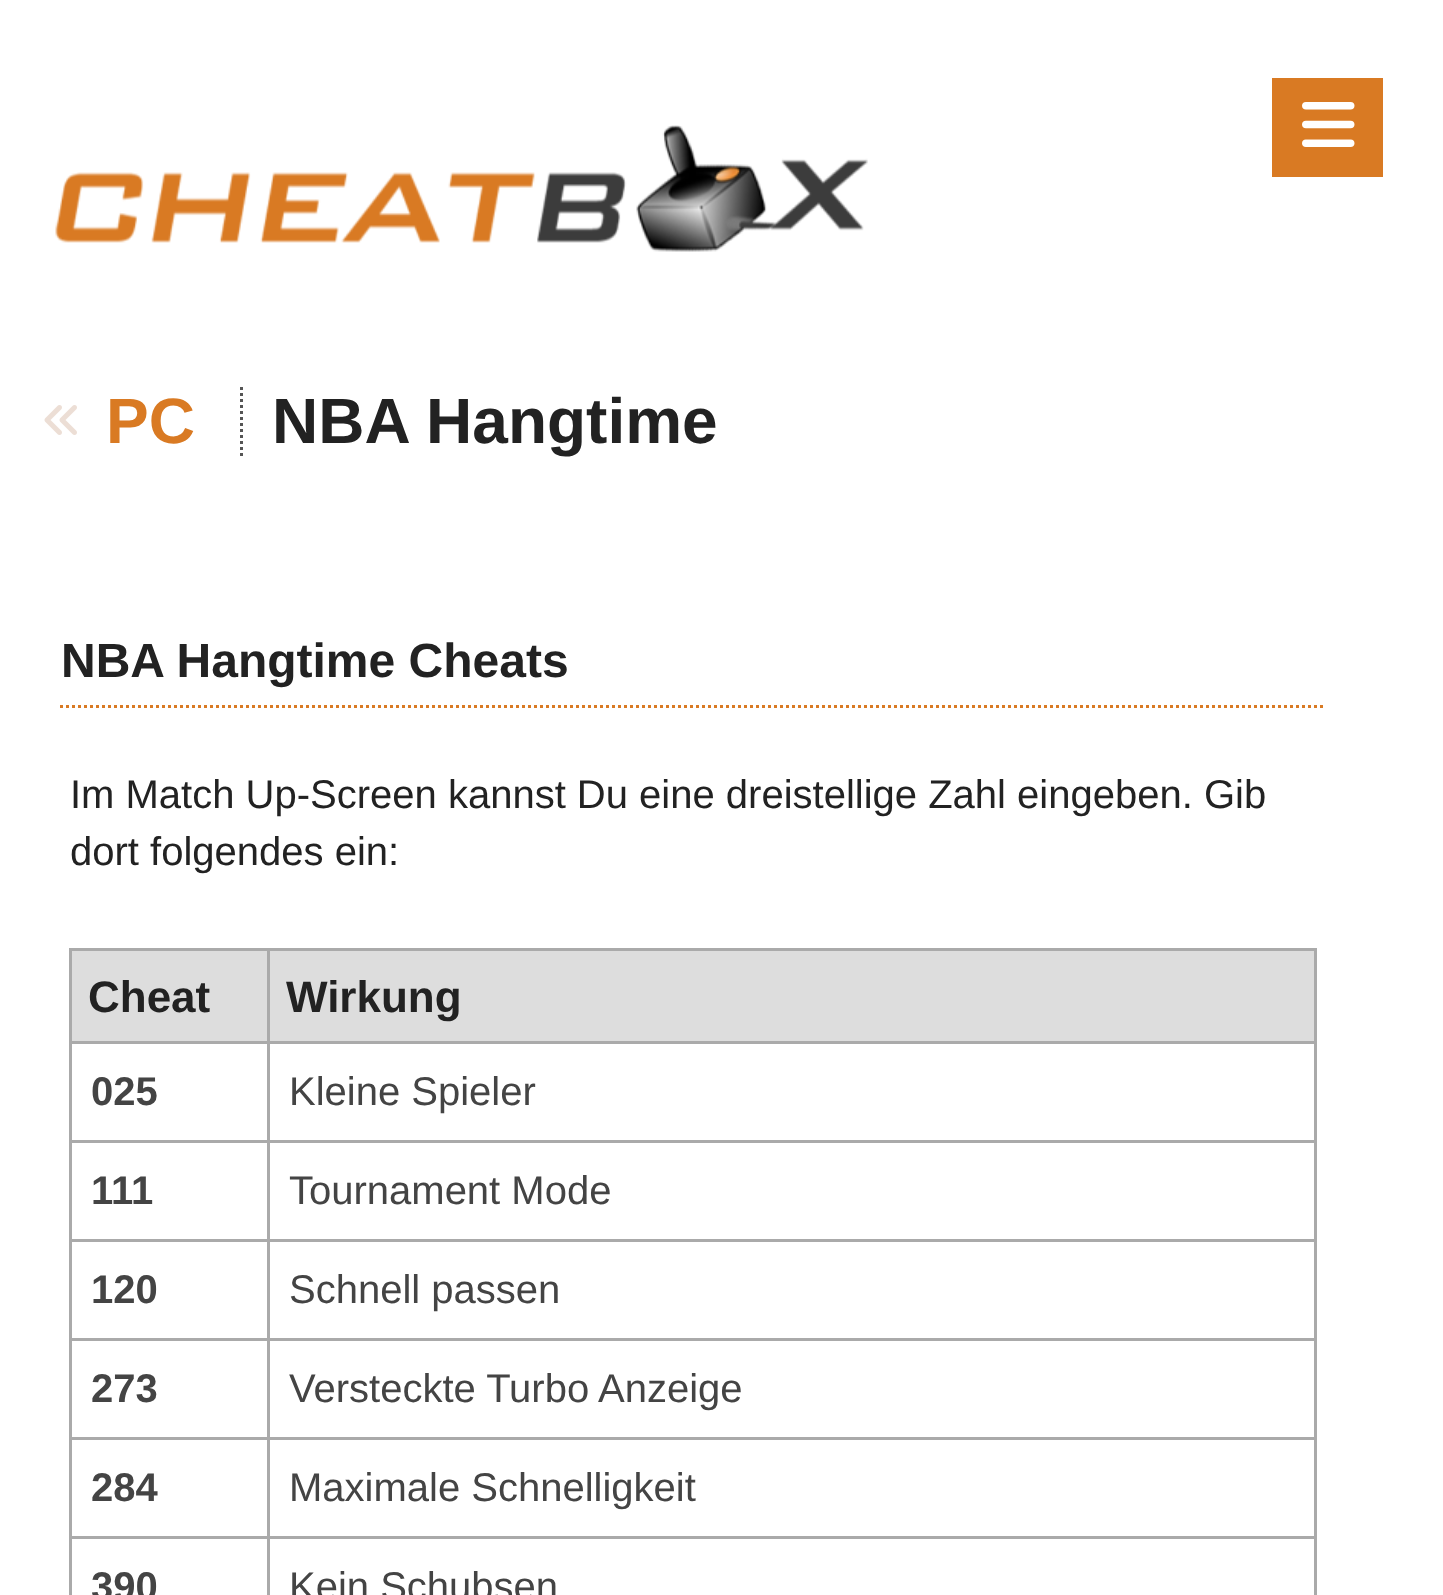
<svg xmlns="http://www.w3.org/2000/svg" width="1443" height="1595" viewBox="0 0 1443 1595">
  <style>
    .t1 { font: bold 64px Liberation Sans; fill: #d97a23; }
    .t2 { font: bold 64px Liberation Sans; fill: #222; }
    .t3 { font: bold 48px Liberation Sans; fill: #222; }
    .t4 { font: 40px Liberation Sans; fill: #222; }
    .t5 { font: bold 44px Liberation Sans; fill: #222; }
    .t6 { font: bold 40px Liberation Sans; fill: #444; }
    .t7 { font: 40px Liberation Sans; fill: #444; }
  </style>
  <rect width="100%" height="100%" fill="#fff"/>
  <image x="55" y="125" width="813" height="127" href="images/1.png"/>
  <rect x="1272" y="78" width="111" height="99" fill="#d97a23"/>
  <image x="1302" y="102" width="53" height="45" href="images/2.png"/>
  <image x="44" y="405" width="33" height="30" href="images/3.png"/>
  <text x="106" y="443" class="t1">PC</text>
  <path d="M241.5 387V459" fill="none" stroke="#555" stroke-width="3" stroke-dasharray="3 3"/>
  <text x="272" y="443" class="t2">NBA Hangtime</text>
  <path d="M60 706.5H1326" fill="none" stroke="#d97a23" stroke-width="3" stroke-dasharray="3 3"/>
  <text x="61" y="677" class="t3">NBA Hangtime Cheats</text>
  <text x="70" y="808" class="t4">Im Match Up-Screen kannst Du eine dreistellige Zahl eingeben. Gib</text>
  <text x="70" y="865" class="t4">dort folgendes ein:</text>
  <rect x="72" y="951" width="1242" height="90" fill="#ddd"/>
  <rect x="267" y="948" width="1050" height="3" fill="#aaa"/>
  <rect x="267" y="1041" width="1050" height="3" fill="#aaa"/>
  <rect x="267" y="1140" width="1050" height="3" fill="#aaa"/>
  <rect x="267" y="1239" width="1050" height="3" fill="#aaa"/>
  <rect x="267" y="1338" width="1050" height="3" fill="#aaa"/>
  <rect x="267" y="1437" width="1050" height="3" fill="#aaa"/>
  <rect x="267" y="1536" width="1050" height="3" fill="#aaa"/>
  <rect x="267" y="1536" width="3" height="59" fill="#aaa"/>
  <rect x="69" y="1536" width="201" height="3" fill="#aaa"/>
  <rect x="267" y="1437" width="3" height="102" fill="#aaa"/>
  <rect x="69" y="1437" width="201" height="3" fill="#aaa"/>
  <rect x="267" y="1338" width="3" height="102" fill="#aaa"/>
  <rect x="69" y="1338" width="201" height="3" fill="#aaa"/>
  <rect x="267" y="1239" width="3" height="102" fill="#aaa"/>
  <rect x="69" y="1239" width="201" height="3" fill="#aaa"/>
  <rect x="267" y="1140" width="3" height="102" fill="#aaa"/>
  <rect x="69" y="1140" width="201" height="3" fill="#aaa"/>
  <rect x="267" y="1041" width="3" height="102" fill="#aaa"/>
  <rect x="69" y="1041" width="201" height="3" fill="#aaa"/>
  <rect x="267" y="948" width="3" height="96" fill="#aaa"/>
  <rect x="69" y="948" width="201" height="3" fill="#aaa"/>
  <rect x="69" y="1536" width="3" height="59" fill="#aaa"/>
  <rect x="69" y="1437" width="3" height="102" fill="#aaa"/>
  <rect x="69" y="1338" width="3" height="102" fill="#aaa"/>
  <rect x="69" y="1239" width="3" height="102" fill="#aaa"/>
  <rect x="69" y="1140" width="3" height="102" fill="#aaa"/>
  <rect x="69" y="1041" width="3" height="102" fill="#aaa"/>
  <rect x="69" y="948" width="3" height="96" fill="#aaa"/>
  <text x="88" y="1012" class="t5">Cheat</text>
  <rect x="1314" y="1536" width="3" height="59" fill="#aaa"/>
  <rect x="1314" y="1437" width="3" height="102" fill="#aaa"/>
  <rect x="1314" y="1338" width="3" height="102" fill="#aaa"/>
  <rect x="1314" y="1239" width="3" height="102" fill="#aaa"/>
  <rect x="1314" y="1140" width="3" height="102" fill="#aaa"/>
  <rect x="1314" y="1041" width="3" height="102" fill="#aaa"/>
  <rect x="1314" y="948" width="3" height="96" fill="#aaa"/>
  <text x="286" y="1012" class="t5">Wirkung</text>
  <text x="91" y="1105" class="t6">025</text>
  <text x="289" y="1105" class="t7">Kleine Spieler</text>
  <text x="91" y="1204" class="t6">111</text>
  <text x="289" y="1204" class="t7">Tournament Mode</text>
  <text x="91" y="1303" class="t6">120</text>
  <text x="289" y="1303" class="t7">Schnell passen</text>
  <text x="91" y="1402" class="t6">273</text>
  <text x="289" y="1402" class="t7">Versteckte Turbo Anzeige</text>
  <text x="91" y="1501" class="t6">284</text>
  <text x="289" y="1501" class="t7">Maximale Schnelligkeit</text>
  <text x="91" y="1600" class="t6">390</text>
  <text x="289" y="1600" class="t7">Kein Schubsen</text>
</svg>
